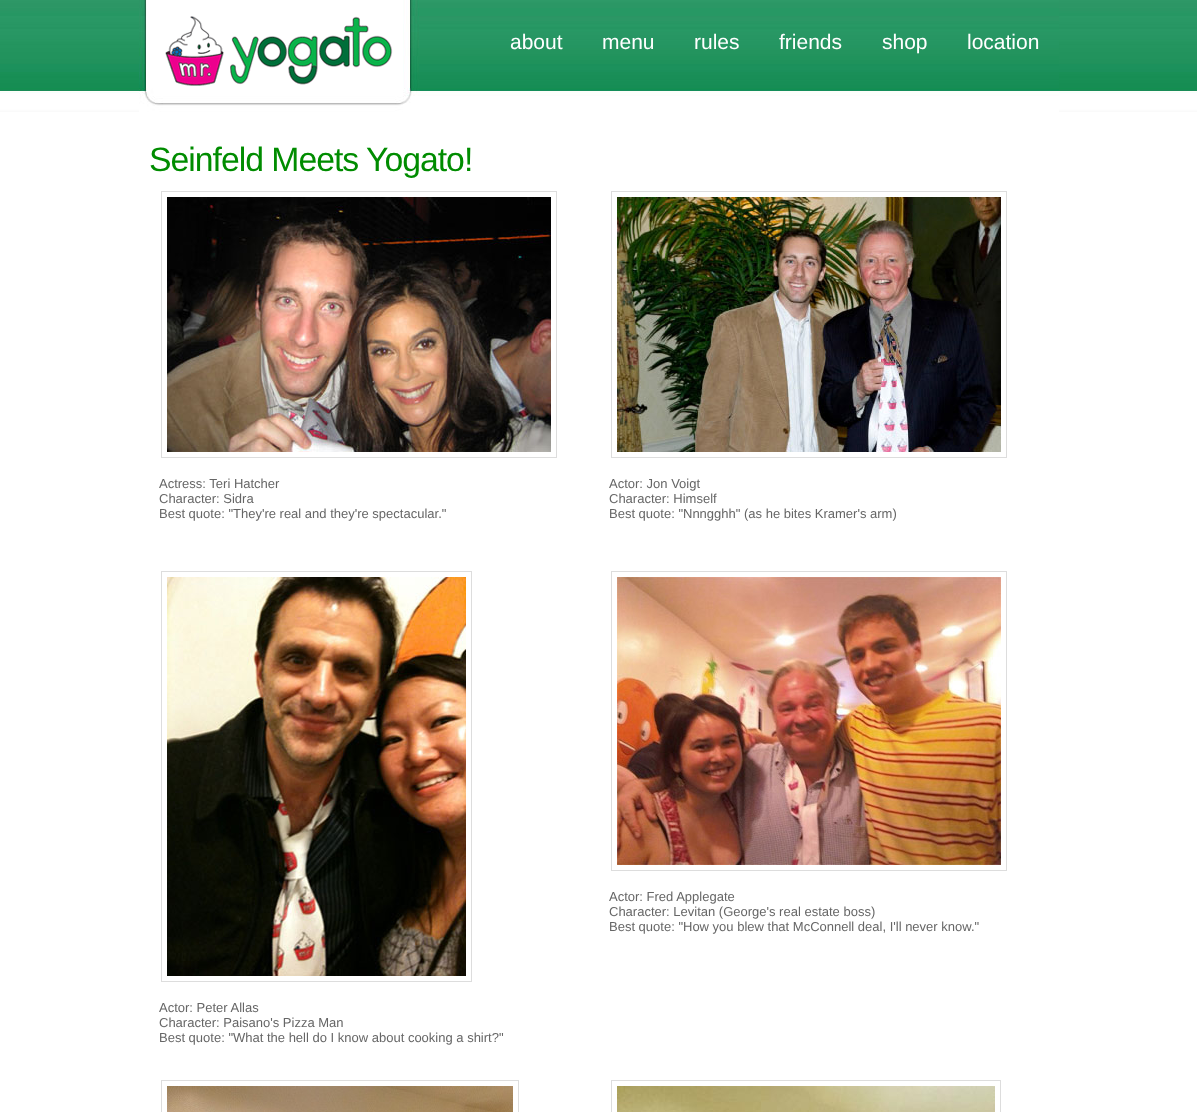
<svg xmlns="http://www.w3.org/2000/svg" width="1197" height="1112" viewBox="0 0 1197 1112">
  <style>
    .t1 { font: 21px Liberation Sans; fill: #fff; }
    .t2 { font: 33.75px Liberation Sans; letter-spacing: -1px; fill: #008c00; }
    .t3 { font: 13px Liberation Sans; fill: #666; }
  </style>
  <rect width="100%" height="100%" fill="#fff"/>
  <image x="0" y="0" width="1197" height="112" href="images/1.png"/>
  <image x="139" y="0" width="920" height="112" href="images/2.png"/>
  <image x="165" y="16" width="228" height="70" href="images/3.png"/>
  <text x="510" y="49" class="t1">about</text>
  <text x="602" y="49" class="t1">menu</text>
  <text x="694" y="49" class="t1">rules</text>
  <text x="779" y="49" class="t1">friends</text>
  <text x="882" y="49" class="t1">shop</text>
  <text x="967" y="49" class="t1">location</text>
  <text x="149" y="171" class="t2">Seinfeld Meets Yogato!</text>
  <rect x="161.5" y="191.5" width="395" height="266" fill="none" stroke="#ddd"/>
  <image x="167" y="197" width="384" height="255" href="images/4.png"/>
  <text x="159" y="488" class="t3">Actress: Teri Hatcher</text>
  <text x="159" y="503" class="t3">Character: Sidra</text>
  <text x="159" y="518" class="t3">Best quote: "They're real and they're spectacular."</text>
  <rect x="611.5" y="191.5" width="395" height="266" fill="none" stroke="#ddd"/>
  <image x="617" y="197" width="384" height="255" href="images/5.png"/>
  <text x="609" y="488" class="t3">Actor: Jon Voigt</text>
  <text x="609" y="503" class="t3">Character: Himself</text>
  <text x="609" y="518" class="t3">Best quote: "Nnngghh" (as he bites Kramer's arm)</text>
  <rect x="611.5" y="571.5" width="395" height="299" fill="none" stroke="#ddd"/>
  <image x="617" y="577" width="384" height="288" href="images/6.png"/>
  <text x="609" y="901" class="t3">Actor: Fred Applegate</text>
  <text x="609" y="916" class="t3">Character: Levitan (George's real estate boss)</text>
  <text x="609" y="931" class="t3">Best quote: "How you blew that McConnell deal, I'll never know."</text>
  <rect x="161.5" y="571.5" width="310" height="410" fill="none" stroke="#ddd"/>
  <image x="167" y="577" width="299" height="399" href="images/7.png"/>
  <text x="159" y="1012" class="t3">Actor: Peter Allas</text>
  <text x="159" y="1027" class="t3">Character: Paisano's Pizza Man</text>
  <text x="159" y="1042" class="t3">Best quote: "What the hell do I know about cooking a shirt?"</text>
  <rect x="161.5" y="1080.5" width="357" height="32" fill="none" stroke="#ddd"/>
  <image x="167" y="1086" width="346" height="26" href="images/8.png"/>
  <rect x="611.5" y="1080.5" width="389" height="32" fill="none" stroke="#ddd"/>
  <image x="617" y="1086" width="378" height="26" href="images/9.png"/>
</svg>
